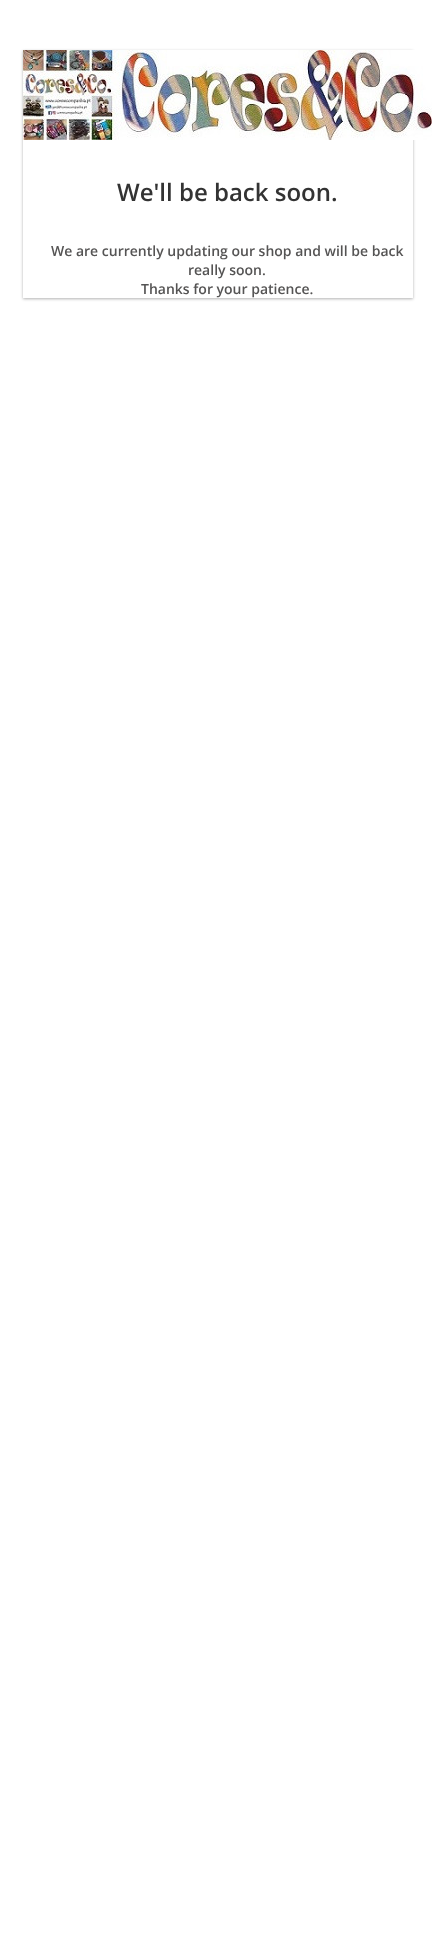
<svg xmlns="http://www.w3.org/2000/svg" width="436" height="1956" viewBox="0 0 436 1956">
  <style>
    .t1 { font: 600 24px Open Sans; fill: #333; }
    .t2 { font: 600 14px Open Sans; fill: #555454; }
  </style>
  <defs>
    <clipPath id="clip1"><path d="M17 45H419V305H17ZM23 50H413V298H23Z" clip-rule="evenodd"/></clipPath>
  </defs>
  <rect width="100%" height="100%" fill="#fff"/>
  <g clip-path="url(#clip1)">
    <rect x="23" y="51" width="390" height="248" fill="#0000004d" filter="blur(1.5px)"/>
  </g>
  <image x="23" y="50" width="409" height="90" href="images/1.png"/>
  <text x="117" y="201" class="t1">We'll be back soon.</text>
  <text x="51" y="256" class="t2">We are currently updating our shop and will be back</text>
  <text x="188" y="275" class="t2">really soon.</text>
  <text x="141" y="294" class="t2">Thanks for your patience.</text>
</svg>
